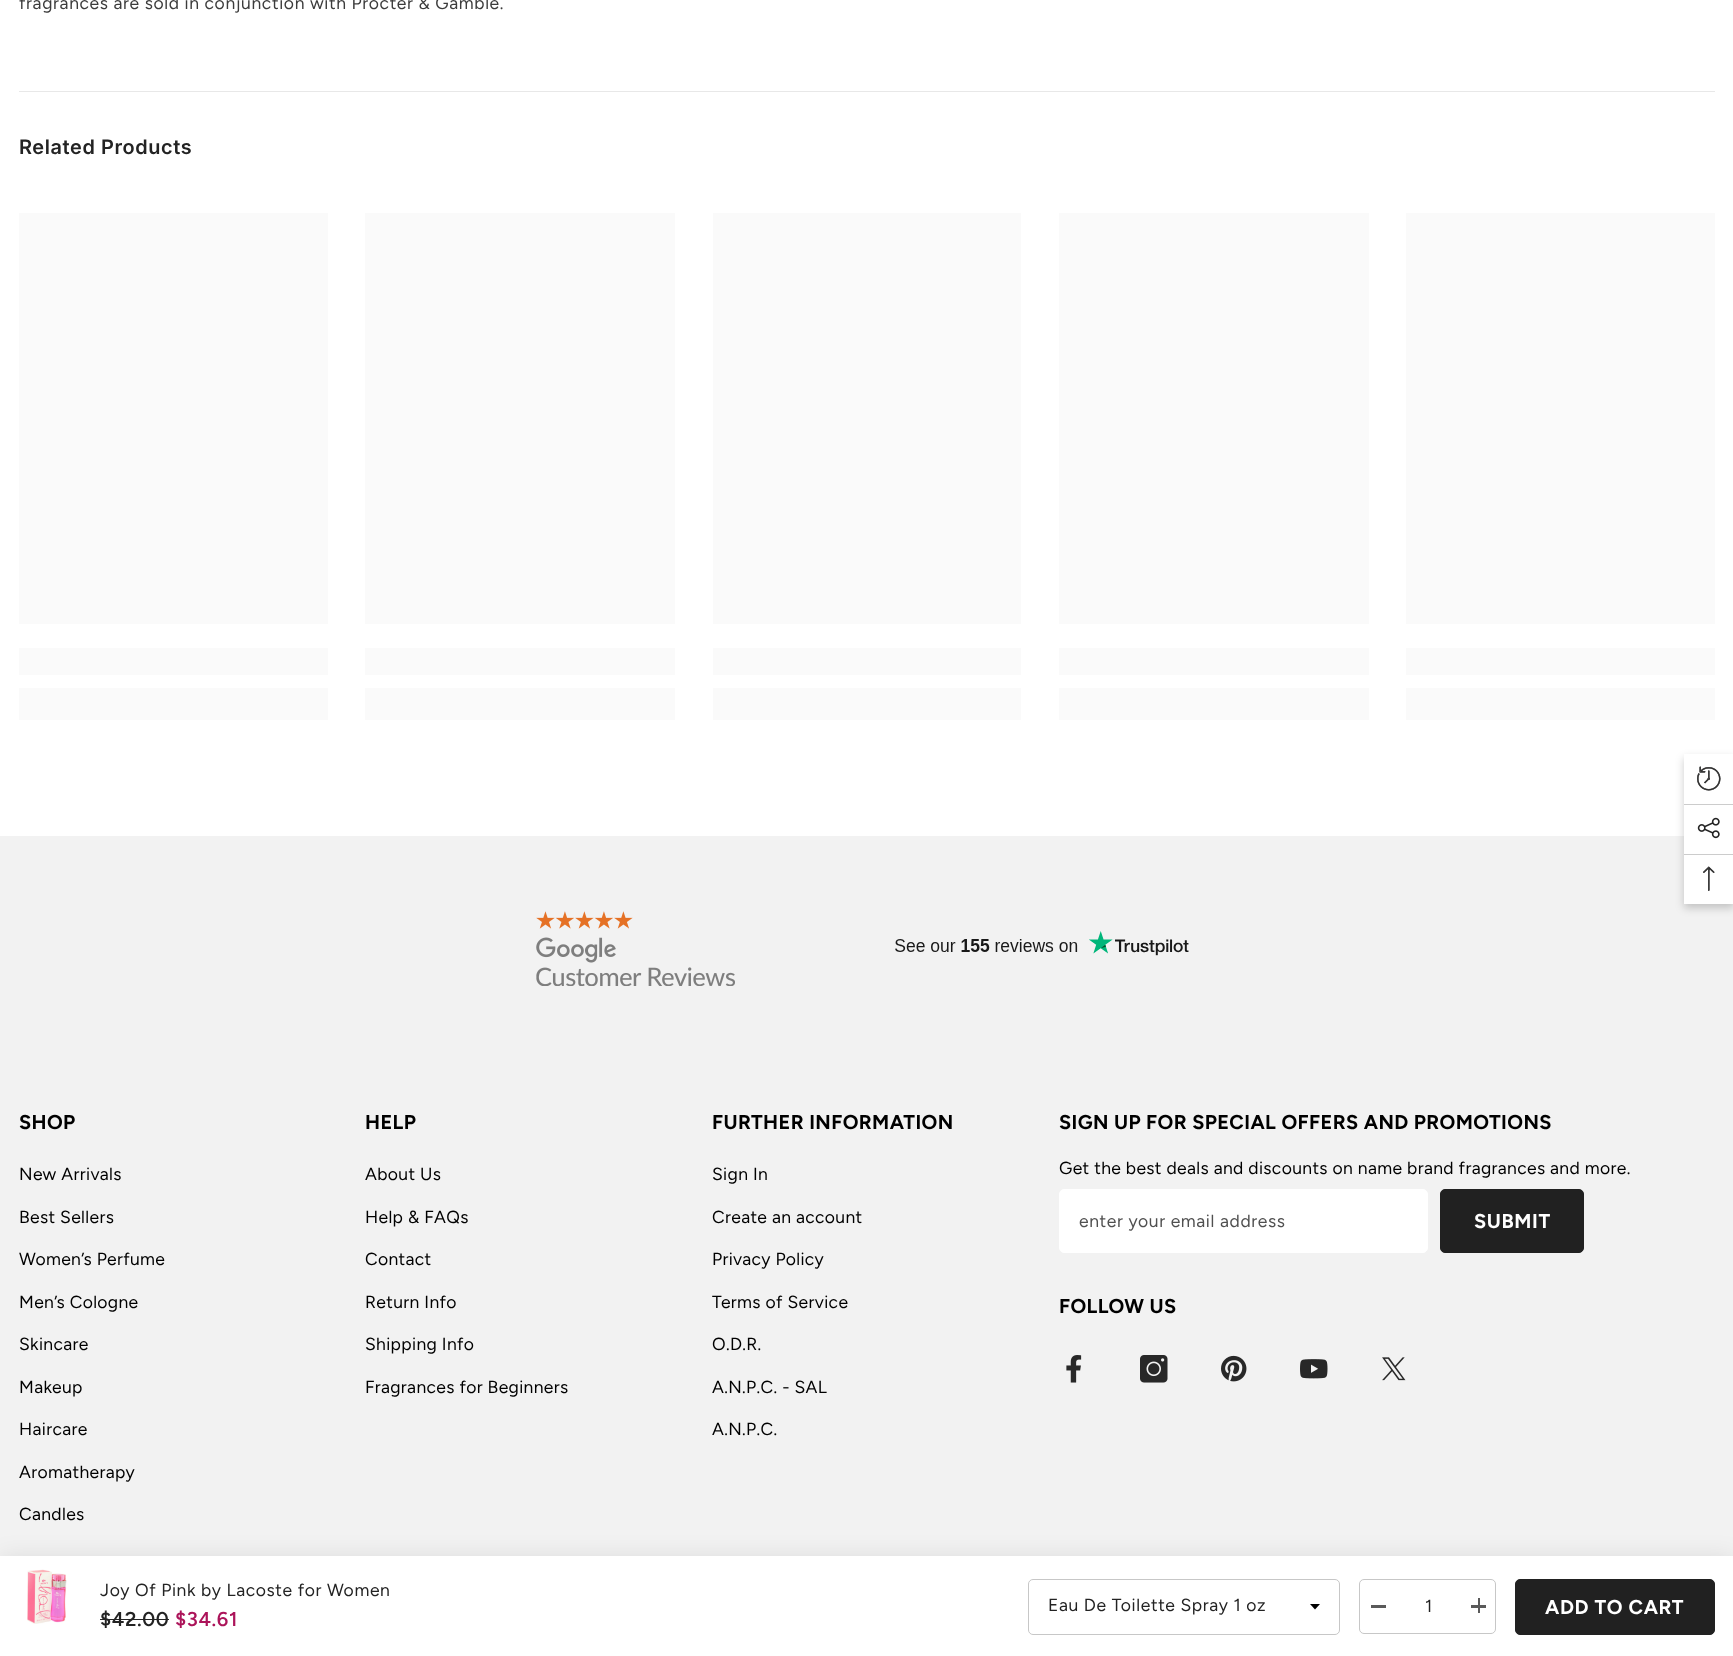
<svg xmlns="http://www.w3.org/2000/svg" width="1733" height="1656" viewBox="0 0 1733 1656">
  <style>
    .t1 { font: 17.5px Figtree; letter-spacing: 0.62px; fill: #3c3c3c; }
    .t2 { font: 17.5px Figtree; letter-spacing: 0.62px; fill: #232323; }
    .t3 { font: 600 20px Figtree; letter-spacing: 0.62px; fill: #232323; }
    .t4 { font: 600 20px Figtree; letter-spacing: 0.62px; fill: #ac145a; }
    .t5 { font: bold 20px Figtree; letter-spacing: 0.62px; fill: #fff; }
    .t6 { font: 600 20px Inter; letter-spacing: 0.62px; fill: #232323; }
    .t7 { font: bold 20px Figtree; letter-spacing: 0.4px; fill: #000; }
    .t8 { font: 17.5px Figtree; letter-spacing: 0.35px; fill: #000; }
    .t9 { font: 17.5px Figtree; letter-spacing: 0.62px; fill: #505050; }
  </style>
  <defs>
    <linearGradient id="g1" gradientUnits="userSpaceOnUse" x1="-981" y1="661" x2="1519" y2="661"><stop offset="0.04" stop-color="#fafafa"/><stop offset="0.25" stop-color="#f1f2f3"/><stop offset="0.36" stop-color="#fafafa"/></linearGradient>
    <linearGradient id="g2" gradientUnits="userSpaceOnUse" x1="-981" y1="704" x2="1519" y2="704"><stop offset="0.04" stop-color="#fafafa"/><stop offset="0.25" stop-color="#f1f2f3"/><stop offset="0.36" stop-color="#fafafa"/></linearGradient>
    <linearGradient id="g3" gradientUnits="userSpaceOnUse" x1="-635" y1="661" x2="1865" y2="661"><stop offset="0.04" stop-color="#fafafa"/><stop offset="0.25" stop-color="#f1f2f3"/><stop offset="0.36" stop-color="#fafafa"/></linearGradient>
    <linearGradient id="g4" gradientUnits="userSpaceOnUse" x1="-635" y1="704" x2="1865" y2="704"><stop offset="0.04" stop-color="#fafafa"/><stop offset="0.25" stop-color="#f1f2f3"/><stop offset="0.36" stop-color="#fafafa"/></linearGradient>
    <linearGradient id="g5" gradientUnits="userSpaceOnUse" x1="-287" y1="661" x2="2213" y2="661"><stop offset="0.04" stop-color="#fafafa"/><stop offset="0.25" stop-color="#f1f2f3"/><stop offset="0.36" stop-color="#fafafa"/></linearGradient>
    <linearGradient id="g6" gradientUnits="userSpaceOnUse" x1="-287" y1="704" x2="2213" y2="704"><stop offset="0.04" stop-color="#fafafa"/><stop offset="0.25" stop-color="#f1f2f3"/><stop offset="0.36" stop-color="#fafafa"/></linearGradient>
    <linearGradient id="g7" gradientUnits="userSpaceOnUse" x1="59" y1="661" x2="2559" y2="661"><stop offset="0.04" stop-color="#fafafa"/><stop offset="0.25" stop-color="#f1f2f3"/><stop offset="0.36" stop-color="#fafafa"/></linearGradient>
    <linearGradient id="g8" gradientUnits="userSpaceOnUse" x1="59" y1="704" x2="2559" y2="704"><stop offset="0.04" stop-color="#fafafa"/><stop offset="0.25" stop-color="#f1f2f3"/><stop offset="0.36" stop-color="#fafafa"/></linearGradient>
    <linearGradient id="g9" gradientUnits="userSpaceOnUse" x1="406" y1="661" x2="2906" y2="661"><stop offset="0.04" stop-color="#fafafa"/><stop offset="0.25" stop-color="#f1f2f3"/><stop offset="0.36" stop-color="#fafafa"/></linearGradient>
    <linearGradient id="g10" gradientUnits="userSpaceOnUse" x1="406" y1="704" x2="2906" y2="704"><stop offset="0.04" stop-color="#fafafa"/><stop offset="0.25" stop-color="#f1f2f3"/><stop offset="0.36" stop-color="#fafafa"/></linearGradient>
  </defs>
  <rect width="100%" height="100%" fill="#fff"/>
  <text x="19" y="9" class="t1">fragrances are sold in conjunction with Procter &amp; Gamble.</text>
  <rect x="0" y="836" width="1733" height="720" fill="#f2f2f2"/>
  <rect x="0" y="1558" width="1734" height="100" fill="#0000001a" filter="blur(12.5px)"/>
  <rect x="0" y="1556" width="1733" height="100" fill="#fff"/>
  <image x="27" y="1569" width="40" height="55" href="images/1.png"/>
  <text x="100" y="1596" class="t2">Joy Of Pink by Lacoste for Women</text>
  <text x="100" y="1626" class="t3">$42.00</text>
  <rect x="100" y="1619" width="69" height="1" fill="#232323"/>
  <text x="175" y="1626" class="t4">$34.61</text>
  <path d="M1310 1604L1315 1609.5L1320 1604Z" fill="#000"/>
  <rect x="1028.5" y="1579.5" width="311" height="55" rx="4.5" fill="none" stroke="#c7c7c7"/>
  <text x="1048" y="1611" class="t2">Eau De Toilette Spray 1 oz</text>
  <rect x="1359.5" y="1579.5" width="136" height="54" rx="4.5" fill="none" stroke="#c7c7c7"/>
  <rect x="1371" y="1605" width="15" height="3" fill="#5a5a5a"/>
  <text x="1425" y="1612" class="t2">1</text>
  <rect x="1471" y="1605" width="15" height="3" fill="#5a5a5a"/>
  <rect x="1478" y="1598" width="2" height="15" fill="#5a5a5a"/>
  <rect x="1515.5" y="1579.5" width="199" height="55" rx="4.5" fill="#212121" stroke="#212121"/>
  <text x="1545" y="1614" class="t5">ADD TO CART</text>
  <rect x="19" y="91" width="1696" height="1" fill="#e8e8e8"/>
  <text x="19" y="154" class="t6">Related Products</text>
  <rect x="19" y="213" width="309" height="411" fill="#fafafa"/>
  <rect x="19" y="648" width="309" height="27" fill="url(#g1)"/>
  <rect x="19" y="688" width="309" height="32" fill="url(#g2)"/>
  <rect x="365" y="213" width="310" height="411" fill="#fafafa"/>
  <rect x="365" y="648" width="310" height="27" fill="url(#g3)"/>
  <rect x="365" y="688" width="310" height="32" fill="url(#g4)"/>
  <rect x="713" y="213" width="308" height="411" fill="#fafafa"/>
  <rect x="713" y="648" width="308" height="27" fill="url(#g5)"/>
  <rect x="713" y="688" width="308" height="32" fill="url(#g6)"/>
  <rect x="1059" y="213" width="310" height="411" fill="#fafafa"/>
  <rect x="1059" y="648" width="310" height="27" fill="url(#g7)"/>
  <rect x="1059" y="688" width="310" height="32" fill="url(#g8)"/>
  <rect x="1406" y="213" width="309" height="411" fill="#fafafa"/>
  <rect x="1406" y="648" width="309" height="27" fill="url(#g9)"/>
  <rect x="1406" y="688" width="309" height="32" fill="url(#g10)"/>
  <image x="536" y="911" width="199" height="75" href="images/2.png"/>
  <image x="895" y="931" width="294" height="25" href="images/3.png"/>
  <text x="19" y="1129" class="t7">SHOP</text>
  <text x="19" y="1180" class="t8">New Arrivals</text>
  <text x="19" y="1223" class="t8">Best Sellers</text>
  <text x="19" y="1265" class="t8">Women’s Perfume</text>
  <text x="19" y="1308" class="t8">Men’s Cologne</text>
  <text x="19" y="1350" class="t8">Skincare</text>
  <text x="19" y="1393" class="t8">Makeup</text>
  <text x="19" y="1435" class="t8">Haircare</text>
  <text x="19" y="1478" class="t8">Aromatherapy</text>
  <text x="19" y="1520" class="t8">Candles</text>
  <text x="365" y="1129" class="t7">HELP</text>
  <text x="365" y="1180" class="t8">About Us</text>
  <text x="365" y="1223" class="t8">Help &amp; FAQs</text>
  <text x="365" y="1265" class="t8">Contact</text>
  <text x="365" y="1308" class="t8">Return Info</text>
  <text x="365" y="1350" class="t8">Shipping Info</text>
  <text x="365" y="1393" class="t8">Fragrances for Beginners</text>
  <text x="712" y="1129" class="t7">FURTHER INFORMATION</text>
  <text x="712" y="1180" class="t8">Sign In</text>
  <text x="712" y="1223" class="t8">Create an account</text>
  <text x="712" y="1265" class="t8">Privacy Policy</text>
  <text x="712" y="1308" class="t8">Terms of Service</text>
  <text x="712" y="1350" class="t8">O.D.R.</text>
  <text x="712" y="1393" class="t8">A.N.P.C. - SAL</text>
  <text x="712" y="1435" class="t8">A.N.P.C.</text>
  <text x="1059" y="1129" class="t7">SIGN UP FOR SPECIAL OFFERS AND PROMOTIONS</text>
  <text x="1059" y="1174" class="t8">Get the best deals and discounts on name brand fragrances and more.</text>
  <rect x="1059.5" y="1189.5" width="368" height="63" rx="4.5" fill="#fff" stroke="#fff"/>
  <text x="1079" y="1227" class="t9">enter your email address</text>
  <rect x="1440.5" y="1189.5" width="143" height="63" rx="4.5" fill="#212121" stroke="#212121"/>
  <text x="1474" y="1228" class="t5">SUBMIT</text>
  <text x="1059" y="1313" class="t7">FOLLOW US</text>
  <image x="1066" y="1355" width="16" height="28" href="images/4.png"/>
  <image x="1140" y="1355" width="28" height="28" href="images/5.png"/>
  <image x="1221" y="1355" width="26" height="27" href="images/6.png"/>
  <image x="1300" y="1359" width="28" height="20" href="images/7.png"/>
  <image x="1382" y="1357" width="24" height="24" href="images/8.png"/>
  <rect x="1684" y="758" width="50" height="150" fill="#00000033" filter="blur(4.5px)"/>
  <rect x="1684" y="754" width="49" height="150" fill="#fff"/>
  <image x="1697" y="766" width="24" height="25" href="images/9.png"/>
  <rect x="1684" y="804" width="49" height="1" fill="#ccc"/>
  <image x="1697" y="817" width="23" height="22" href="images/10.png"/>
  <rect x="1684" y="854" width="49" height="1" fill="#ccc"/>
  <image x="1703" y="866" width="12" height="25" href="images/11.png"/>
</svg>
